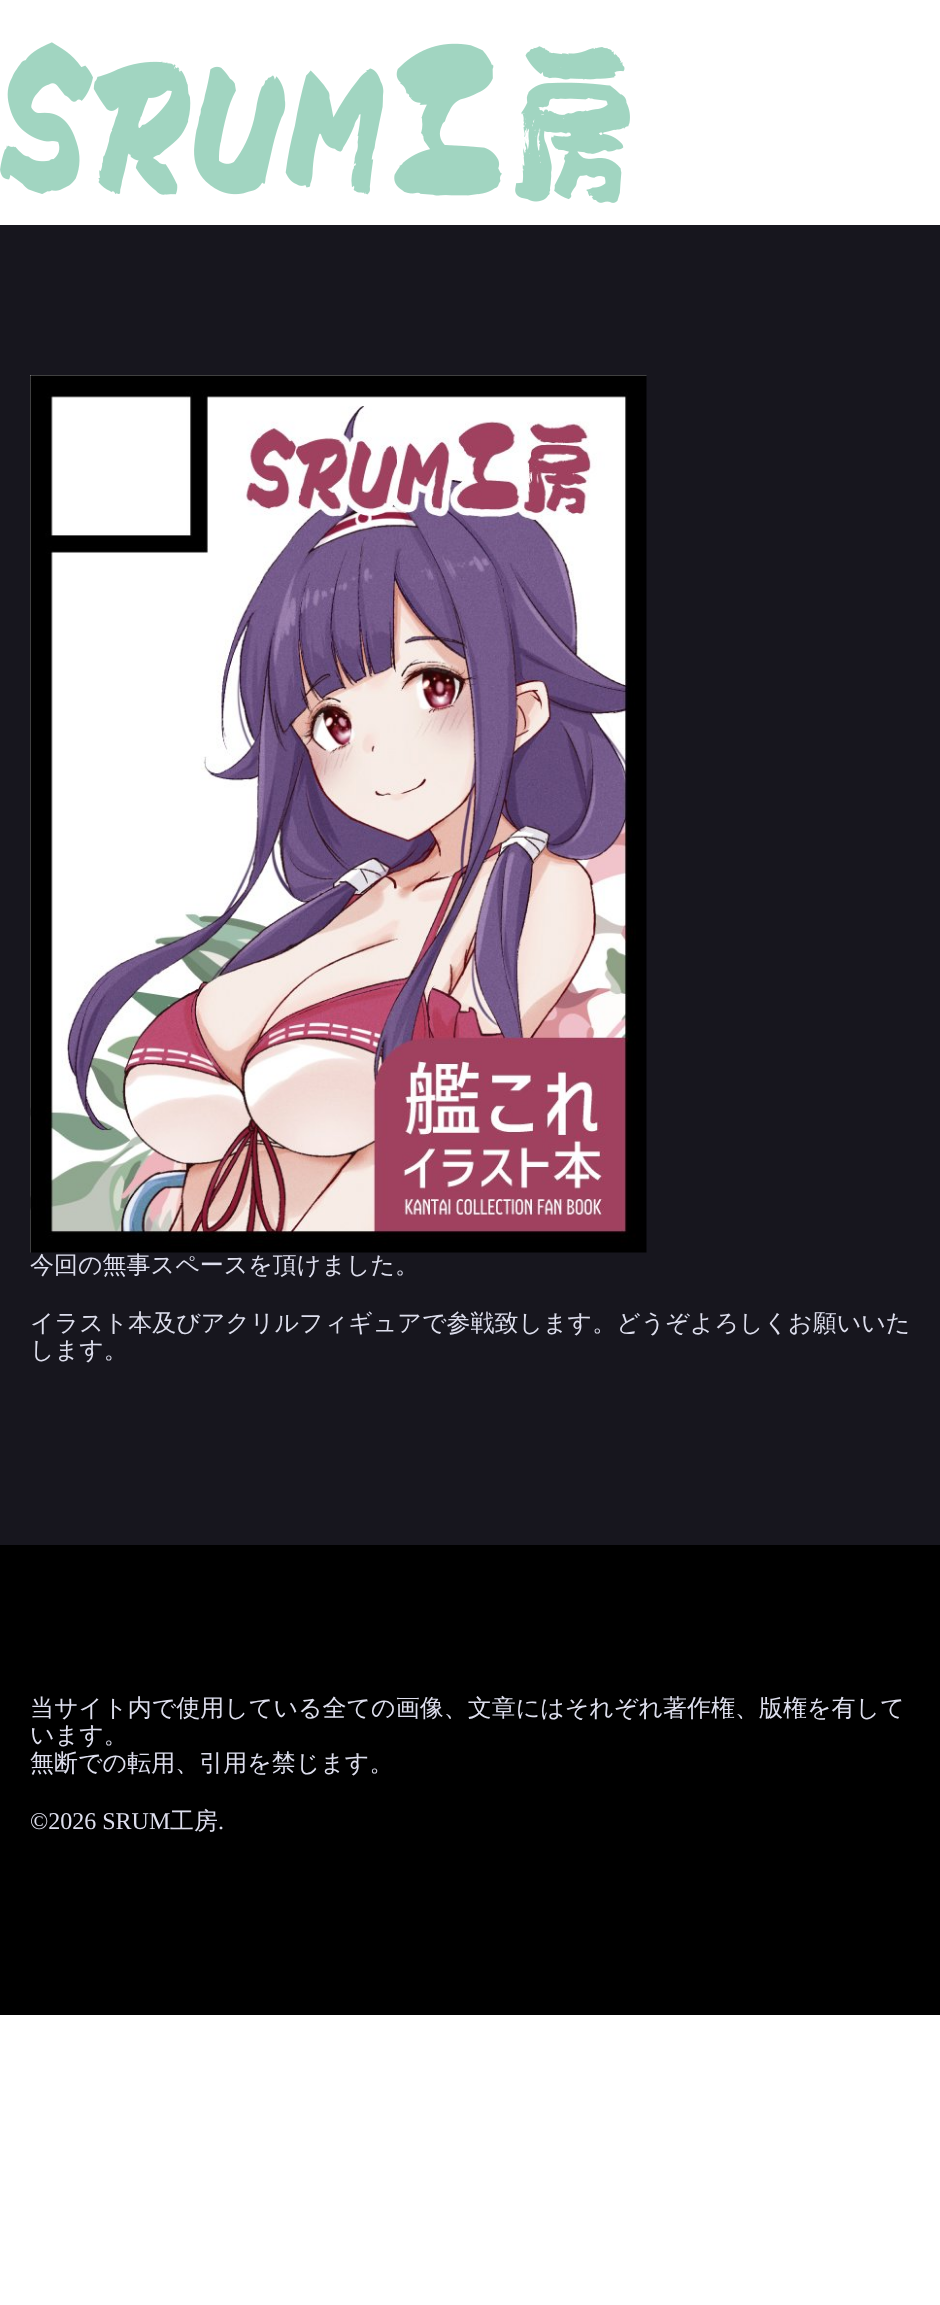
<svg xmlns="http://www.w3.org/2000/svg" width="940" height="2305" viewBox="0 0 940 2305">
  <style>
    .t1 { font: 500 24px WenQuanYi Zen Hei; fill: #dddeed; }
    .t2 { font: 24px Liberation Serif; fill: #dddeed; }
  </style>
  <rect width="100%" height="100%" fill="#fff"/>
  <image x="0" y="42" width="630" height="161" href="images/1.png"/>
  <rect x="0" y="225" width="940" height="1320" fill="#17161e"/>
  <image x="30" y="375" width="617" height="878" href="images/2.png"/>
  <text x="30" y="1273" class="t1">今回の無事スペースを頂けました。</text>
  <text x="30" y="1331" class="t1">イラスト本及びアクリルフィギュアで参戦致します。どうぞよろしくお願いいた</text>
  <text x="30" y="1358" class="t1">します。</text>
  <rect x="0" y="1545" width="940" height="470" fill="#000"/>
  <text x="30" y="1716" class="t1">当サイト内で使用している全ての画像、文章にはそれぞれ著作権、版権を有して</text>
  <text x="30" y="1743" class="t1">います。</text>
  <text x="30" y="1771" class="t1">無断での転用、引用を禁じます。</text>
  <text x="30" y="1829" class="t2">©2026 SRUM</text>
  <text x="170" y="1829" class="t1">工房</text>
  <text x="218" y="1829" class="t2">.</text>
</svg>
